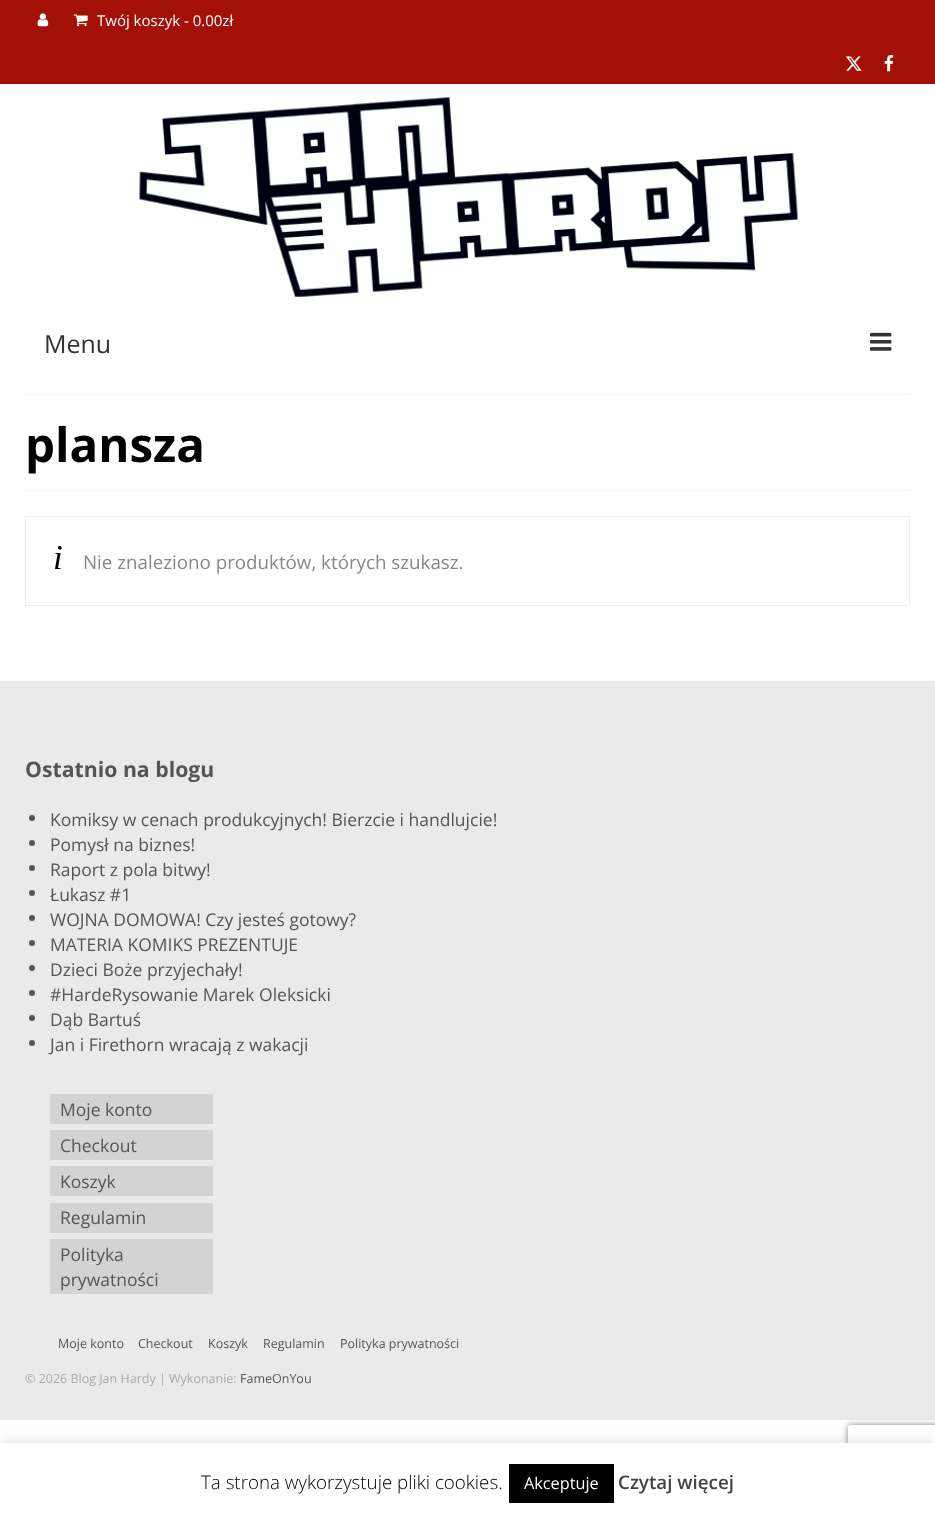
<svg xmlns="http://www.w3.org/2000/svg" width="935" height="1517" viewBox="0 0 935 1517">
  <style>
    .t1 { font: 15px Open Sans; fill: #fff; }
    .t2 { font: 25px Open Sans; fill: #333; }
    .t3 { font: bold 47.5px Open Sans; fill: #000; }
    .t4 { font: italic 35px Liberation Serif; fill: #000; }
    .t5 { font: 18.75px Open Sans; fill: #888; }
    .t6 { font: bold 21.25px Open Sans; fill: #555; }
    .t7 { font: 17.5px Open Sans; fill: #555; }
    .t8 { font: 12.5px Open Sans; fill: #555; }
    .t9 { font: 12.5px Open Sans; fill: #aaa; }
    .t10 { font: 300 18.75px Open Sans; fill: #000; }
    .t11 { font: 16.25px Open Sans; fill: #fff; }
    .t12 { font: 600 18.75px Open Sans; fill: #444; }
  </style>
  <defs>
    <clipPath id="clip1"><path d="M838 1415H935V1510H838ZM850.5 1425H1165.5C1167 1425 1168 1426 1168 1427.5V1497.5C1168 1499 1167 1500 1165.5 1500H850.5C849 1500 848 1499 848 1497.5V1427.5C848 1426 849 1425 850.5 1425Z" clip-rule="evenodd"/></clipPath>
  </defs>
  <rect width="100%" height="100%" fill="#fff"/>
  <rect x="0" y="0" width="935" height="84" fill="#a31006"/>
  <image x="37" y="13" width="12" height="14" href="images/1.png"/>
  <image x="73" y="14" width="15" height="13" href="images/2.png"/>
  <text x="97" y="26" class="t1">Twój koszyk - 0.00zł</text>
  <image x="846" y="56" width="16" height="15" href="images/3.png"/>
  <image x="884" y="55" width="10" height="17" href="images/4.png"/>
  <image x="139" y="97" width="659" height="200" href="images/5.png"/>
  <text x="44" y="353" class="t2">Menu</text>
  <image x="870" y="332" width="22" height="19" href="images/6.png"/>
  <rect x="25" y="394" width="885" height="1" fill="#f2f2f2"/>
  <rect x="25" y="490" width="885" height="1" fill="#f2f2f2"/>
  <text x="25" y="462" class="t3">plansza</text>
  <rect x="25.5" y="516.5" width="884" height="89" fill="none" stroke="#ededed"/>
  <text x="53" y="569" class="t4">i</text>
  <text x="83" y="569" class="t5">Nie znaleziono produktów, których szukasz.</text>
  <rect x="0" y="681" width="935" height="739" fill="#eaeaea"/>
  <text x="25" y="777" class="t6">Ostatnio na blogu</text>
  <circle cx="32" cy="818" r="3" fill="#555"/>
  <text x="50" y="826" class="t7">Komiksy w cenach produkcyjnych! Bierzcie i handlujcie!</text>
  <circle cx="32" cy="843" r="3" fill="#555"/>
  <text x="50" y="851" class="t7">Pomysł na biznes!</text>
  <circle cx="32" cy="868" r="3" fill="#555"/>
  <text x="50" y="876" class="t7">Raport z pola bitwy!</text>
  <circle cx="32" cy="893" r="3" fill="#555"/>
  <text x="50" y="901" class="t7">Łukasz #1</text>
  <circle cx="32" cy="918" r="3" fill="#555"/>
  <text x="50" y="926" class="t7">WOJNA DOMOWA! Czy jesteś gotowy?</text>
  <circle cx="32" cy="943" r="3" fill="#555"/>
  <text x="50" y="951" class="t7">MATERIA KOMIKS PREZENTUJE</text>
  <circle cx="32" cy="968" r="3" fill="#555"/>
  <text x="50" y="976" class="t7">Dzieci Boże przyjechały!</text>
  <circle cx="32" cy="993" r="3" fill="#555"/>
  <text x="50" y="1001" class="t7">#HardeRysowanie Marek Oleksicki</text>
  <circle cx="32" cy="1018" r="3" fill="#555"/>
  <text x="50" y="1026" class="t7">Dąb Bartuś</text>
  <circle cx="32" cy="1043" r="3" fill="#555"/>
  <text x="50" y="1051" class="t7">Jan i Firethorn wracają z wakacji</text>
  <rect x="50" y="1094" width="163" height="30" fill="#d3d3d3"/>
  <text x="60" y="1116" class="t7">Moje konto</text>
  <rect x="50" y="1130" width="163" height="30" fill="#d3d3d3"/>
  <text x="60" y="1152" class="t7">Checkout</text>
  <rect x="50" y="1166" width="163" height="30" fill="#d3d3d3"/>
  <text x="60" y="1188" class="t7">Koszyk</text>
  <rect x="50" y="1203" width="163" height="30" fill="#d3d3d3"/>
  <text x="60" y="1224" class="t7">Regulamin</text>
  <rect x="50" y="1239" width="163" height="55" fill="#d3d3d3"/>
  <text x="60" y="1261" class="t7">Polityka</text>
  <text x="60" y="1286" class="t7">prywatności</text>
  <text x="58" y="1348" class="t8">Moje konto</text>
  <text x="138" y="1348" class="t8">Checkout</text>
  <text x="208" y="1348" class="t8">Koszyk</text>
  <text x="263" y="1348" class="t8">Regulamin</text>
  <text x="340" y="1348" class="t8">Polityka prywatności</text>
  <text x="25" y="1383" class="t9">© 2026 Blog Jan Hardy | Wykonanie:</text>
  <text x="240" y="1383" class="t8">FameOnYou</text>
  <rect x="0" y="1441" width="935" height="75" fill="#acabab4d" filter="blur(6px)"/>
  <g clip-path="url(#clip1)">
    <rect x="848" y="1425" width="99" height="75" rx="2.5" fill="#808080" filter="blur(3px)"/>
  </g>
  <rect x="0" y="1443" width="935" height="74" fill="#fff"/>
  <text x="201" y="1489" class="t10">Ta strona wykorzystuje pliki cookies.</text>
  <rect x="509" y="1464" width="105" height="39" fill="#000"/>
  <text x="524" y="1489" class="t11">Akceptuje</text>
  <text x="618" y="1489" class="t12">Czytaj więcej</text>
</svg>
